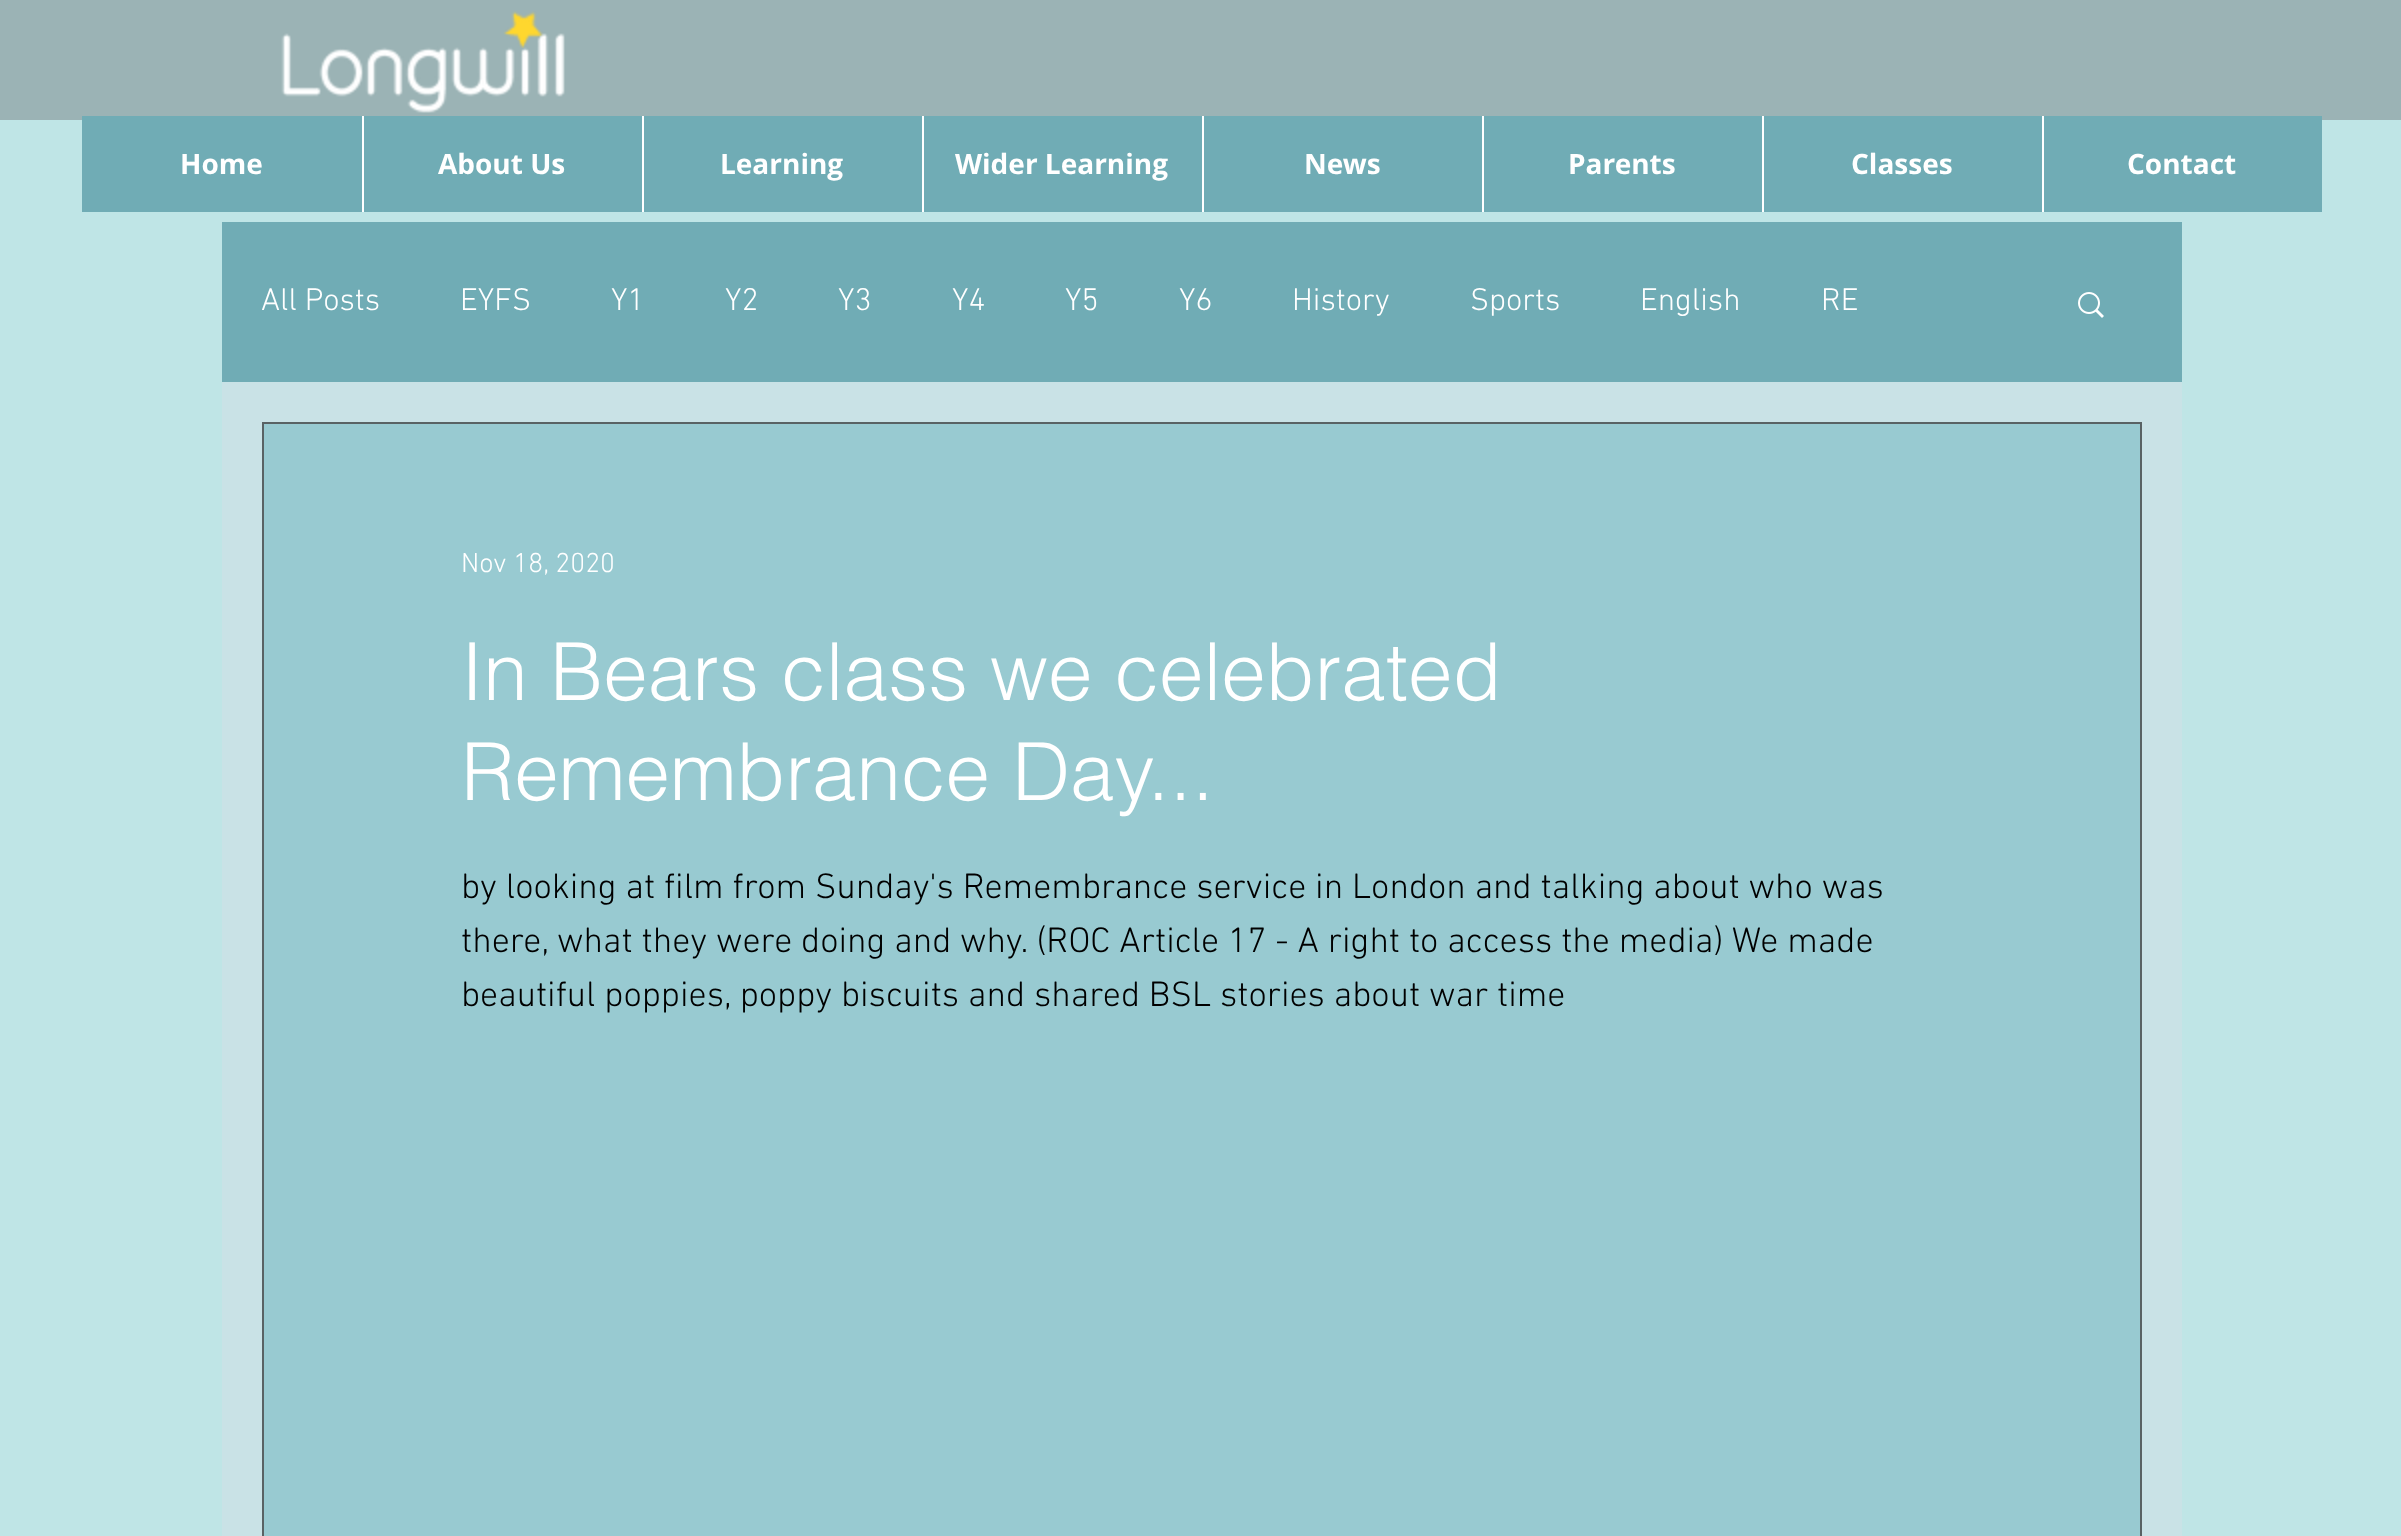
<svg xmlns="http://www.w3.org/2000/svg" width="2401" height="1536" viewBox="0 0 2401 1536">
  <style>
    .t1 { font: bold 28px Open Sans; fill: #fff; }
    .t2 { font: 300 32px 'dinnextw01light'; fill: #fff; }
    .t3 { font: 300 28px 'dinnextw01light'; fill: #fff; }
    .t4 { font: 300 80px helvetica; fill: #fff; }
    .t5 { font: 300 36px 'dinnextw01light'; fill: #000; }
  </style>
  <rect width="100%" height="100%" fill="#bfe5e6"/>
  <rect x="0" y="0" width="2401" height="120" fill="#9bb3b5"/>
  <image x="503" y="11" width="41" height="37" href="images/1.png"/>
  <image x="281" y="33" width="284" height="80" href="images/2.png"/>
  <rect x="82" y="116" width="2240" height="96" fill="#70acb5"/>
  <text x="180" y="174" class="t1">Home</text>
  <rect x="362" y="116" width="2" height="96" fill="#fff"/>
  <text x="438" y="174" class="t1">About Us</text>
  <rect x="642" y="116" width="2" height="96" fill="#fff"/>
  <text x="720" y="174" class="t1">Learning</text>
  <rect x="922" y="116" width="2" height="96" fill="#fff"/>
  <text x="955" y="174" class="t1">Wider Learning</text>
  <rect x="1202" y="116" width="2" height="96" fill="#fff"/>
  <text x="1304" y="174" class="t1">News</text>
  <rect x="1482" y="116" width="2" height="96" fill="#fff"/>
  <text x="1568" y="174" class="t1">Parents</text>
  <rect x="1762" y="116" width="2" height="96" fill="#fff"/>
  <text x="1851" y="174" class="t1">Classes</text>
  <rect x="2042" y="116" width="2" height="96" fill="#fff"/>
  <text x="2127" y="174" class="t1">Contact</text>
  <rect x="222" y="382" width="1960" height="1154" fill="#c9e2e6"/>
  <rect x="222" y="222" width="1960" height="160" fill="#70acb5"/>
  <text x="261" y="310" class="t2">All Posts</text>
  <text x="460" y="310" class="t2">EYFS</text>
  <text x="611" y="310" class="t2">Y1</text>
  <text x="725" y="310" class="t2">Y2</text>
  <text x="838" y="310" class="t2">Y3</text>
  <text x="952" y="310" class="t2">Y4</text>
  <text x="1065" y="310" class="t2">Y5</text>
  <text x="1179" y="310" class="t2">Y6</text>
  <text x="1292" y="310" class="t2">History</text>
  <text x="1470" y="310" class="t2">Sports</text>
  <text x="1640" y="310" class="t2">English</text>
  <text x="1821" y="310" class="t2">RE</text>
  <image x="2078" y="292" width="26" height="26" href="images/3.png"/>
  <rect x="263" y="423" width="1878" height="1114" fill="#98cad1" stroke="#596264" stroke-width="2"/>
  <text x="461" y="572" class="t3">Nov 18, 2020</text>
  <text x="461" y="700" class="t4">In Bears class we celebrated</text>
  <text x="461" y="800" class="t4">Remembrance Day...</text>
  <text x="461" y="898" class="t5">by looking at film from Sunday's Remembrance service in London and talking about who was</text>
  <text x="461" y="952" class="t5">there, what they were doing and why. (ROC Article 17 - A right to access the media) We made</text>
  <text x="461" y="1006" class="t5">beautiful poppies, poppy biscuits and shared BSL stories about war time</text>
</svg>
